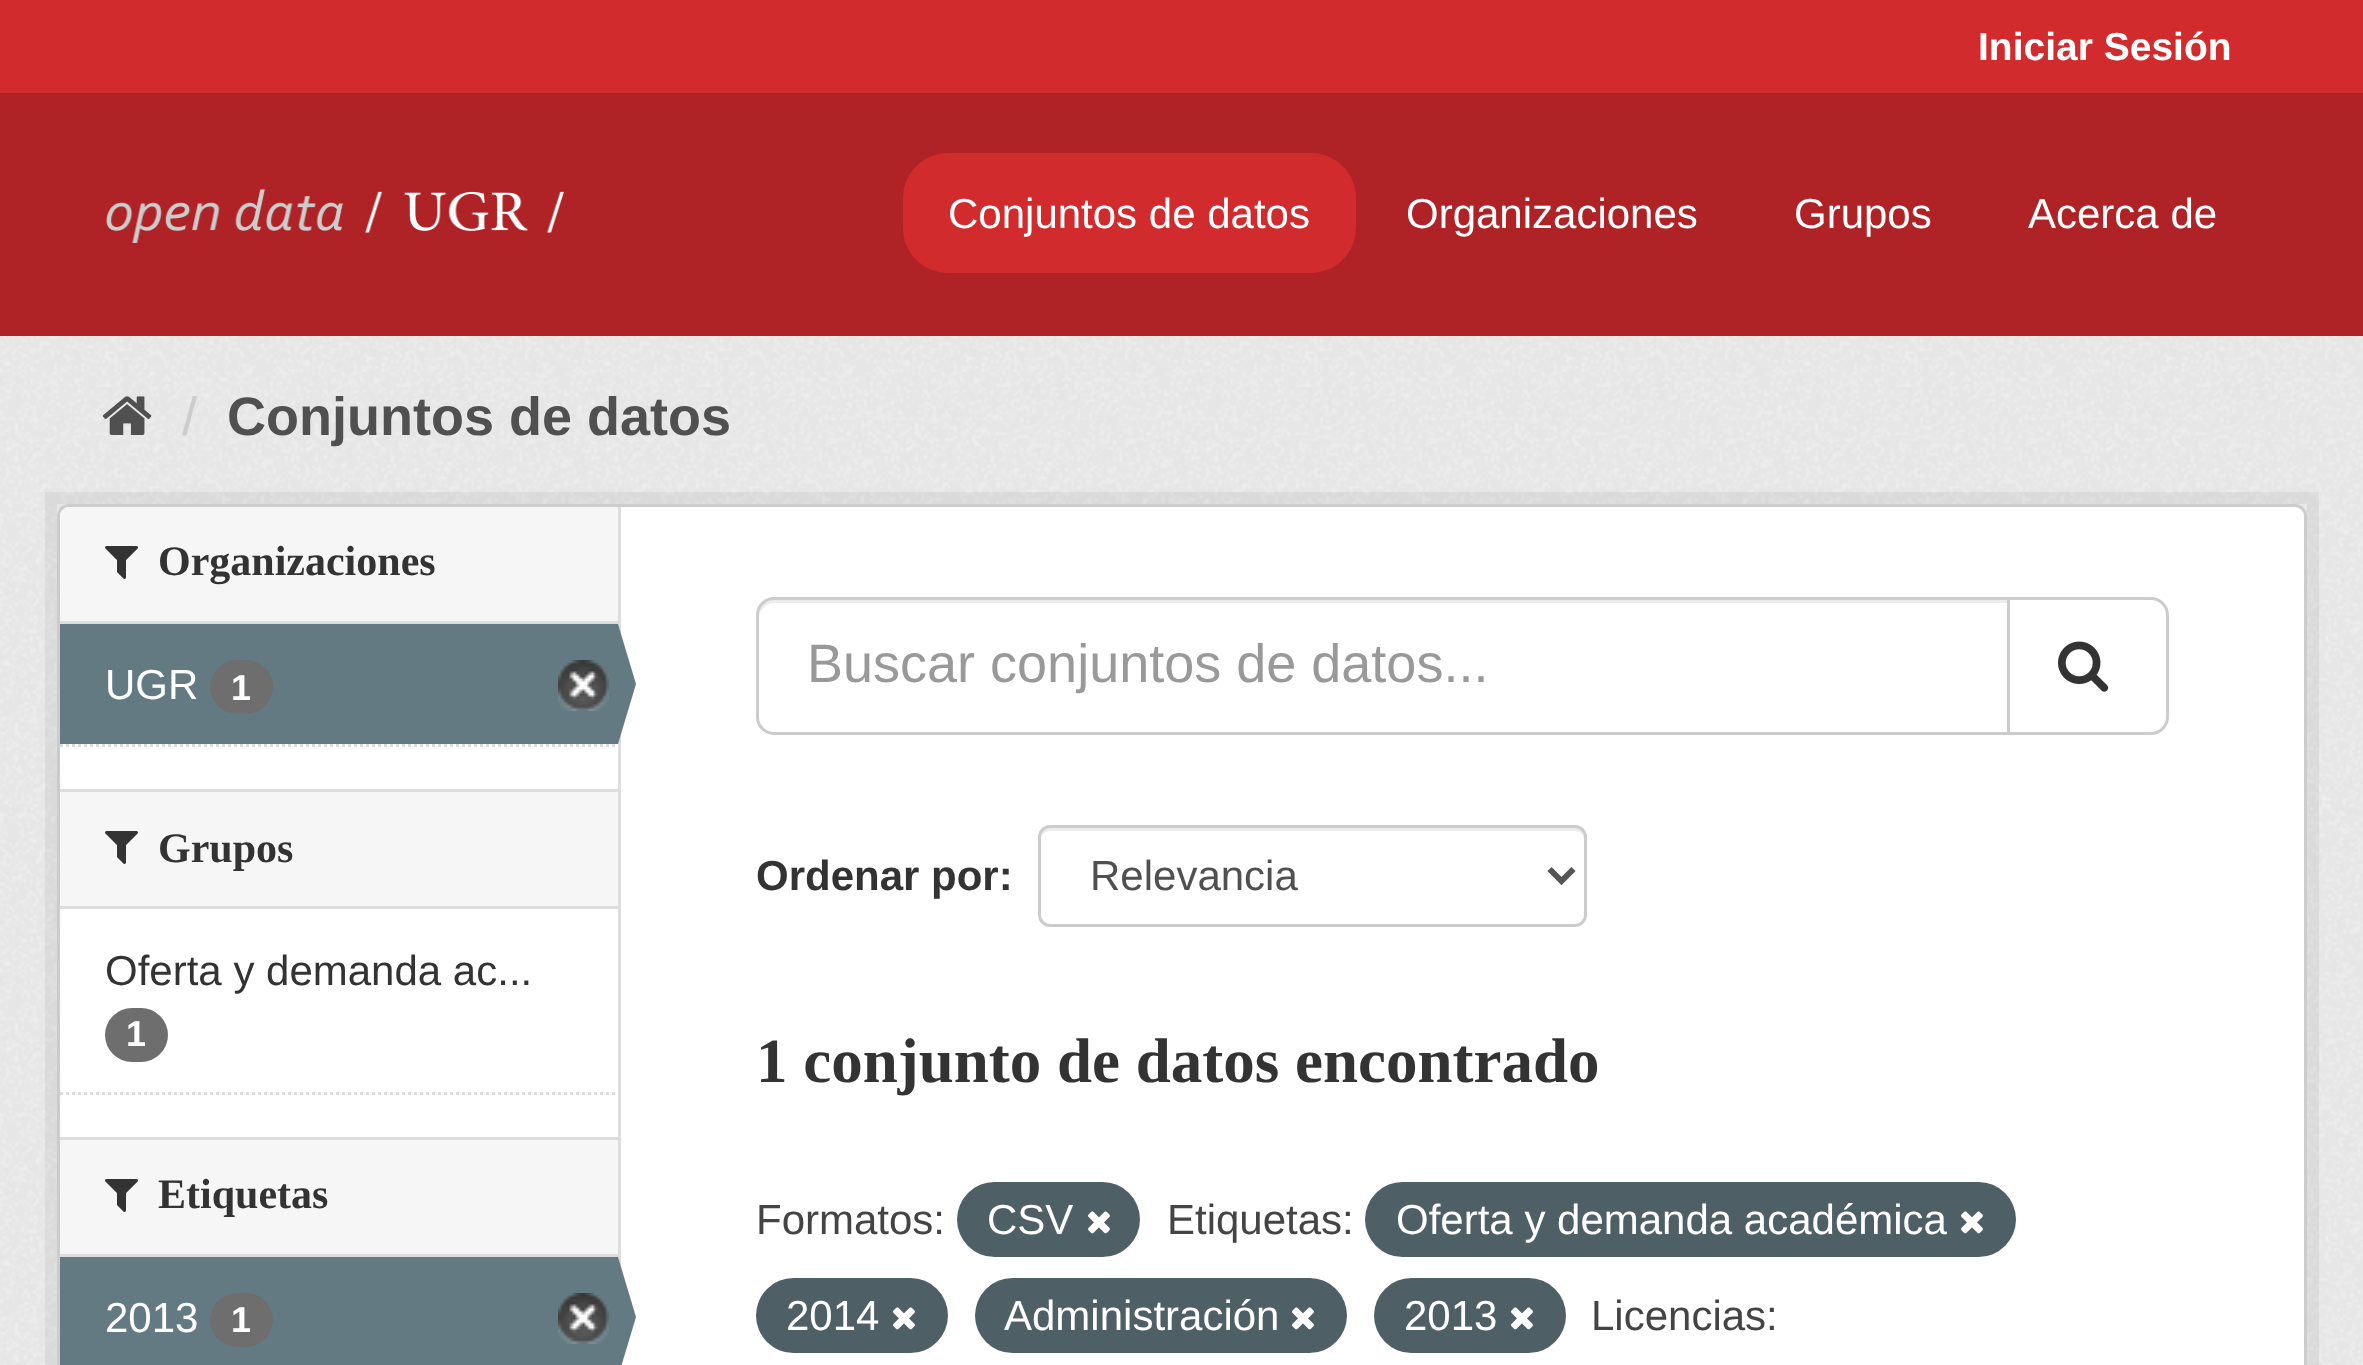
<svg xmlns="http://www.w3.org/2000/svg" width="2363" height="1365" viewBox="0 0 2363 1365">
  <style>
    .t1 { font: bold 39px Liberation Sans; fill: #fff; }
    .t2 { font: 42px Liberation Sans; fill: #fff; }
    .t3 { font: 54px Liberation Sans; fill: #ccc; }
    .t4 { font: bold 54px Liberation Sans; fill: #505050; }
    .t5 { font: bold 42px Liberation Serif; fill: #333; }
    .t6 { font: bold 36px Liberation Sans; fill: #fff; }
    .t7 { font: 42px Liberation Sans; fill: #333; }
    .t8 { font: 54px Liberation Sans; fill: #999; }
    .t9 { font: bold 42px Liberation Sans; fill: #333; }
    .t10 { font: 42px Liberation Sans; fill: #505050; }
    .t11 { font: bold 63px Liberation Serif; fill: #333; }
    .t12 { font: 42px Liberation Sans; fill: #444; }
  </style>
  <rect width="100%" height="100%" fill="#d12b2e"/>
  <text x="1978" y="60" class="t1">Iniciar Sesión</text>
  <rect x="0" y="93" width="2363" height="243" fill="#af2326"/>
  <image x="106" y="189" width="458" height="54" href="images/1.png"/>
  <rect x="903" y="153" width="453" height="120" rx="45" fill="#d12b2e"/>
  <text x="948" y="228" class="t2">Conjuntos de datos</text>
  <text x="1406" y="228" class="t2">Organizaciones</text>
  <text x="1794" y="228" class="t2">Grupos</text>
  <text x="2028" y="228" class="t2">Acerca de</text>
  <rect x="0" y="336" width="2363" height="1029" fill="#eee"/>
  <image x="0" y="336" width="2363" height="1029" href="images/2.png"/>
  <image x="102" y="396" width="50" height="39" href="images/3.png"/>
  <text x="182" y="435" class="t3">/</text>
  <text x="227" y="435" class="t4">Conjuntos de datos</text>
  <rect x="51" y="498" width="2262" height="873" fill="none" stroke="#0000000d" stroke-width="12"/>
  <rect x="58.5" y="505.5" width="2247" height="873" rx="10.5" fill="#fff" stroke="#ccc" stroke-width="3"/>
  <path d="M69 507H618V624H60V516C60 511 64 507 69 507Z" fill="#f6f6f6"/>
  <rect x="60" y="621" width="558" height="3" fill="#ddd"/>
  <image x="105" y="546" width="33" height="33" href="images/4.png"/>
  <text x="158" y="575" class="t5">Organizaciones</text>
  <rect x="60" y="624" width="558" height="120" fill="#647a82"/>
  <text x="105" y="699" class="t2">UGR</text>
  <rect x="210" y="660" width="63" height="54" rx="27" fill="#6e6e6e"/>
  <text x="231" y="700" class="t6">1</text>
  <image x="558" y="660" width="51" height="51" href="images/5.png"/>
  <rect x="618" y="507" width="3" height="760" fill="#ddd"/>
  <path d="M618 744V624L636 684Z" fill="#647a82"/>
  <path d="M60 745.5H618" fill="none" stroke="#ddd" stroke-width="3" stroke-dasharray="3 3"/>
  <rect x="60" y="792" width="558" height="114" fill="#f6f6f6"/>
  <rect x="60" y="789" width="558" height="3" fill="#ddd"/>
  <rect x="60" y="906" width="558" height="3" fill="#ddd"/>
  <image x="105" y="831" width="33" height="33" href="images/4.png"/>
  <text x="158" y="862" class="t5">Grupos</text>
  <text x="105" y="985" class="t7">Oferta y demanda ac...</text>
  <rect x="105" y="1008" width="63" height="54" rx="27" fill="#6e6e6e"/>
  <text x="126" y="1046" class="t6">1</text>
  <path d="M60 1093.5H618" fill="none" stroke="#ddd" stroke-width="3" stroke-dasharray="3 3"/>
  <rect x="60" y="1140" width="558" height="114" fill="#f6f6f6"/>
  <rect x="60" y="1137" width="558" height="3" fill="#ddd"/>
  <rect x="60" y="1254" width="558" height="3" fill="#ddd"/>
  <image x="105" y="1179" width="33" height="33" href="images/4.png"/>
  <text x="158" y="1208" class="t5">Etiquetas</text>
  <rect x="60" y="1257" width="558" height="108" fill="#647a82"/>
  <text x="105" y="1332" class="t2">2013</text>
  <rect x="210" y="1293" width="63" height="54" rx="27" fill="#6e6e6e"/>
  <text x="231" y="1332" class="t6">1</text>
  <image x="558" y="1293" width="51" height="51" href="images/5.png"/>
  <path d="M618 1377V1257L636 1317Z" fill="#647a82"/>
  <path d="M774 603H2007V600H774C763 600 759 609 759 618C759 610 766 603 774 603Z" fill="#ececec"/>
  <path d="M774 598.5H2008.5V733.5H774C765 733.5 757.5 726 757.5 717V615C757.5 606 765 598.5 774 598.5Z" fill="none" stroke="#ccc" stroke-width="3"/>
  <text x="807" y="682" class="t8">Buscar conjuntos de datos...</text>
  <path d="M2008.5 598.5H2151C2160 598.5 2167.5 606 2167.5 615V717C2167.5 726 2160 733.5 2151 733.5H2008.5Z" fill="#fff" stroke="#ccc" stroke-width="3"/>
  <image x="2058" y="641" width="51" height="51" href="images/6.png"/>
  <text x="756" y="890" class="t9">Ordenar por:</text>
  <path d="M1050 831H1575C1580 831 1584 835 1584 840V837C1584 832 1580 828 1575 828H1050C1045 828 1041 832 1041 837V840C1041 835 1045 831 1050 831Z" fill="#ececec"/>
  <rect x="1039.5" y="826.5" width="546" height="99" rx="10.5" fill="none" stroke="#ccc" stroke-width="3"/>
  <path d="M1549.5 869L1561.5 881L1573.5 869" fill="none" stroke="#555" stroke-width="6"/>
  <text x="1090" y="890" class="t10">Relevancia</text>
  <text x="756" y="1082" class="t11">1 conjunto de datos encontrado</text>
  <text x="756" y="1234" class="t12">Formatos:</text>
  <rect x="957" y="1182" width="183" height="75" rx="37.5" fill="#4e5f65"/>
  <text x="987" y="1234" class="t2">CSV</text>
  <image x="1088" y="1211" width="22" height="23" href="images/7.png"/>
  <text x="1167" y="1234" class="t12">Etiquetas:</text>
  <rect x="1365" y="1182" width="651" height="75" rx="37.5" fill="#4e5f65"/>
  <text x="1396" y="1234" class="t2">Oferta y demanda académica</text>
  <image x="1961" y="1211" width="22" height="23" href="images/7.png"/>
  <rect x="756" y="1278" width="192" height="75" rx="37.5" fill="#4e5f65"/>
  <text x="786" y="1330" class="t2">2014</text>
  <image x="893" y="1307" width="22" height="23" href="images/7.png"/>
  <rect x="975" y="1278" width="372" height="75" rx="37.5" fill="#4e5f65"/>
  <text x="1004" y="1330" class="t2">Administración</text>
  <image x="1292" y="1307" width="22" height="23" href="images/7.png"/>
  <rect x="1374" y="1278" width="192" height="75" rx="37.5" fill="#4e5f65"/>
  <text x="1404" y="1330" class="t2">2013</text>
  <image x="1511" y="1307" width="22" height="23" href="images/7.png"/>
  <text x="1591" y="1330" class="t12">Licencias:</text>
</svg>
